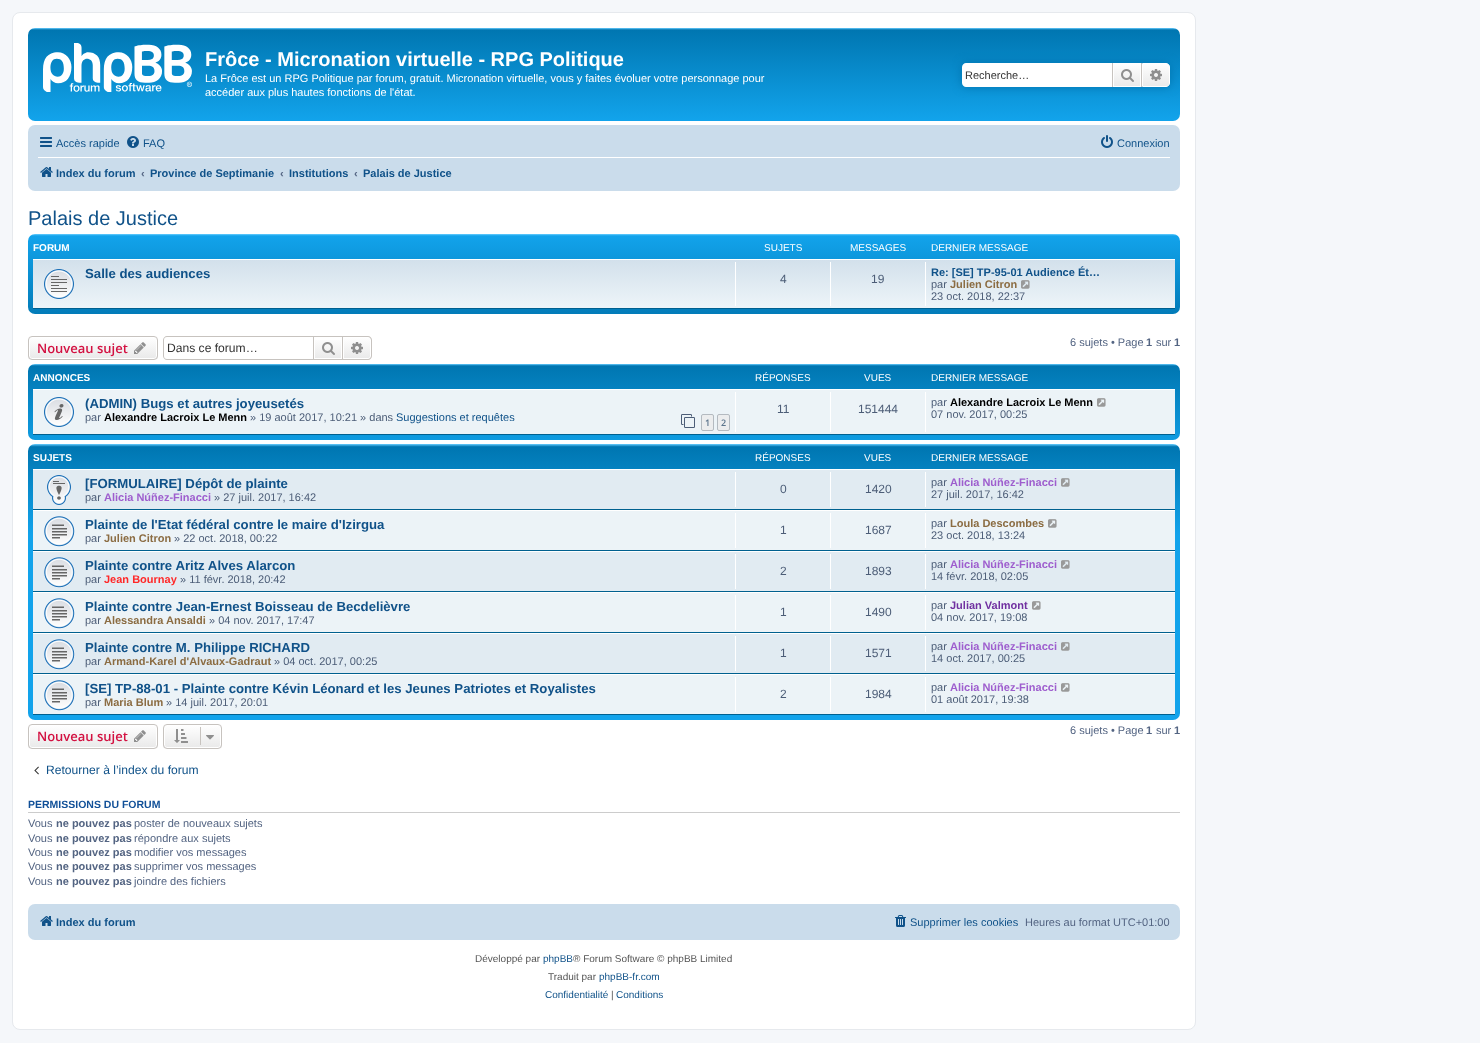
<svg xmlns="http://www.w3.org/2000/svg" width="1480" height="1043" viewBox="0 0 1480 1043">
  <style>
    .t1 { font: bold 20px Liberation Sans; fill: #fff; }
    .t2 { font: 11px Liberation Sans; fill: #fff; }
    .t3 { font: 11px Liberation Sans; fill: #333; }
    .t4 { font: 11px Liberation Sans; fill: #105289; }
    .t5 { font: bold 11px Liberation Sans; fill: #105289; }
    .t6 { font: bold 11px Liberation Sans; fill: #536482; }
    .t7 { font: 20px Liberation Sans; fill: #105289; }
    .t8 { font: bold 10px Liberation Sans; fill: #fff; }
    .t9 { font: 10px Liberation Sans; fill: #fff; }
    .t10 { font: bold 13.2px Liberation Sans; fill: #105289; }
    .t11 { font: 12px Liberation Sans; fill: #4c5d77; }
    .t12 { font: 11px Liberation Sans; fill: #4c5d77; }
    .t13 { font: bold 11px Liberation Sans; fill: #8b6c42; }
    .t14 { font: 600 13px Open Sans; fill: #d31141; }
    .t15 { font: 12.1px Liberation Sans; fill: #333; }
    .t16 { font: 11px Liberation Sans; fill: #536482; }
    .t17 { font: bold 11px Liberation Sans; fill: #000; }
    .t18 { font: 600 9px Open Sans; fill: #5c758c; }
    .t19 { font: bold 11px Liberation Sans; fill: #9e5ece; }
    .t20 { font: bold 11px Liberation Sans; fill: #ff2828; }
    .t21 { font: bold 11px Liberation Sans; fill: #7030a0; }
    .t22 { font: 12.1px Liberation Sans; fill: #105289; }
    .t23 { font: bold 10.5px Liberation Sans; fill: #115098; }
    .t24 { font: 10px Liberation Sans; fill: #555; }
    .t25 { font: 10px Liberation Sans; fill: #105289; }
  </style>
  <defs>
    <linearGradient id="g1" gradientUnits="userSpaceOnUse" x1="604" y1="28" x2="604" y2="121"><stop offset="0" stop-color="#6aceff"/><stop offset="0.02" stop-color="#0076b1"/><stop offset="0.99" stop-color="#12a3eb"/><stop offset="1" stop-color="#12a3eb"/></linearGradient>
    <linearGradient id="g2" gradientUnits="userSpaceOnUse" x1="1127" y1="63" x2="1127" y2="87"><stop offset="0" stop-color="#fff"/><stop offset="1" stop-color="#e9e9e9"/></linearGradient>
    <linearGradient id="g3" gradientUnits="userSpaceOnUse" x1="1156" y1="63" x2="1156" y2="87"><stop offset="0" stop-color="#fff"/><stop offset="1" stop-color="#e9e9e9"/></linearGradient>
    <linearGradient id="g4" gradientUnits="userSpaceOnUse" x1="604" y1="234" x2="604" y2="326"><stop offset="0" stop-color="#6aceff"/><stop offset="0.02" stop-color="#12a3eb"/><stop offset="1" stop-color="#0076b1"/></linearGradient>
    <linearGradient id="g5" gradientUnits="userSpaceOnUse" x1="604" y1="259" x2="604" y2="309"><stop offset="0" stop-color="#d2e0eb"/><stop offset="1" stop-color="#eef5f9"/></linearGradient>
    <clipPath id="clip1"><rect x="28" y="336" width="130" height="24" rx="4"/></clipPath>
    <linearGradient id="g6" gradientUnits="userSpaceOnUse" x1="93" y1="337" x2="93" y2="359"><stop offset="0" stop-color="#fff"/><stop offset="1" stop-color="#e9e9e9"/></linearGradient>
    <linearGradient id="g7" gradientUnits="userSpaceOnUse" x1="328" y1="337" x2="328" y2="359"><stop offset="0" stop-color="#fff"/><stop offset="1" stop-color="#e9e9e9"/></linearGradient>
    <linearGradient id="g8" gradientUnits="userSpaceOnUse" x1="357" y1="337" x2="357" y2="359"><stop offset="0" stop-color="#fff"/><stop offset="1" stop-color="#e9e9e9"/></linearGradient>
    <linearGradient id="g9" gradientUnits="userSpaceOnUse" x1="604" y1="364" x2="604" y2="456"><stop offset="0" stop-color="#6aceff"/><stop offset="0.02" stop-color="#0076b1"/><stop offset="1" stop-color="#12a3eb"/></linearGradient>
    <linearGradient id="g10" gradientUnits="userSpaceOnUse" x1="604" y1="444" x2="604" y2="720"><stop offset="0" stop-color="#6aceff"/><stop offset="0.01" stop-color="#0076b1"/><stop offset="0.33" stop-color="#12a3eb"/><stop offset="1" stop-color="#12a3eb"/></linearGradient>
    <clipPath id="clip2"><rect x="28" y="724" width="130" height="25" rx="4"/></clipPath>
    <linearGradient id="g11" gradientUnits="userSpaceOnUse" x1="93" y1="725" x2="93" y2="748"><stop offset="0" stop-color="#fff"/><stop offset="1" stop-color="#e9e9e9"/></linearGradient>
    <clipPath id="clip3"><rect x="163" y="724" width="59" height="25" rx="4"/></clipPath>
    <linearGradient id="g12" gradientUnits="userSpaceOnUse" x1="193" y1="725" x2="193" y2="748"><stop offset="0" stop-color="#fff"/><stop offset="1" stop-color="#e9e9e9"/></linearGradient>
  </defs>
  <rect width="100%" height="100%" fill="#f5f7fa"/>
  <rect x="12.5" y="12.5" width="1183" height="1017" rx="7.5" fill="#fff" stroke="#e6e9ed"/>
  <rect x="28" y="28" width="1152" height="93" rx="7" fill="url(#g1)"/>
  <image x="43" y="43" width="149" height="49" href="images/1.png"/>
  <text x="205" y="66" class="t1">Frôce - Micronation virtuelle - RPG Politique</text>
  <text x="205" y="82" class="t2">La Frôce est un RPG Politique par forum, gratuit. Micronation virtuelle, vous y faites évoluer votre personnage pour</text>
  <text x="205" y="96" class="t2">accéder aux plus hautes fonctions de l'état.</text>
  <rect x="962" y="63" width="208" height="24" rx="4" fill="#0075b0" filter="blur(5px)"/>
  <path d="M966 63H1112V87H966C964 87 962 85 962 83V67C962 65 964 63 966 63Z" fill="#fff"/>
  <text x="965" y="79" class="t3">Recherche…</text>
  <rect x="1114" y="64" width="26" height="22" fill="url(#g2)"/>
  <rect x="1113.5" y="63.5" width="27" height="23" fill="none" stroke="#fff"/>
  <rect x="1141" y="63" width="1" height="24" fill="#c7c3bf"/>
  <rect x="1112" y="63" width="1" height="24" fill="#c7c3bf"/>
  <image x="1121" y="69" width="13" height="13" href="images/2.png"/>
  <path d="M1142.5 63.5H1166C1168 63.5 1169.5 65 1169.5 67V83C1169.5 85 1168 86.5 1166 86.5H1142.5Z" fill="url(#g3)" stroke="#fff"/>
  <image x="1150" y="69" width="12" height="12" href="images/3.png"/>
  <rect x="28" y="125" width="1152" height="66" rx="7" fill="#cadceb"/>
  <image x="40" y="137" width="12" height="10" href="images/4.png"/>
  <text x="56" y="147" class="t4">Accès rapide</text>
  <image x="127" y="136" width="12" height="12" href="images/5.png"/>
  <text x="143" y="147" class="t4">FAQ</text>
  <image x="1101" y="135" width="12" height="13" href="images/6.png"/>
  <text x="1117" y="147" class="t4">Connexion</text>
  <rect x="38" y="157" width="1132" height="1" fill="#fff"/>
  <image x="40" y="167" width="13" height="10" href="images/7.png"/>
  <text x="56" y="177" class="t5">Index du forum</text>
  <text x="141" y="177" class="t6">‹</text>
  <text x="150" y="177" class="t5">Province de Septimanie</text>
  <text x="280" y="177" class="t6">‹</text>
  <text x="289" y="177" class="t5">Institutions</text>
  <text x="354" y="177" class="t6">‹</text>
  <text x="363" y="177" class="t5">Palais de Justice</text>
  <text x="28" y="225" class="t7">Palais de Justice</text>
  <rect x="28" y="234" width="1152" height="80" rx="7" fill="url(#g4)"/>
  <text x="33" y="251" class="t8">FORUM</text>
  <text x="764" y="251" class="t9">SUJETS</text>
  <text x="850" y="251" class="t9">MESSAGES</text>
  <text x="931" y="251" class="t9">DERNIER MESSAGE</text>
  <rect x="33" y="260" width="1142" height="48" fill="url(#g5)"/>
  <rect x="33" y="259" width="1142" height="1" fill="#fff"/>
  <rect x="33" y="308" width="1142" height="1" fill="#00608f"/>
  <image x="44" y="269" width="30" height="30" href="images/8.png"/>
  <text x="85" y="278" class="t10">Salle des audiences</text>
  <rect x="735" y="262" width="1" height="44" fill="#fff"/>
  <text x="780" y="283" class="t11">4</text>
  <rect x="830" y="262" width="1" height="44" fill="#fff"/>
  <text x="871" y="283" class="t11">19</text>
  <rect x="925" y="262" width="1" height="44" fill="#fff"/>
  <text x="931" y="276" class="t5">Re: [SE] TP-95-01 Audience Ét…</text>
  <text x="931" y="288" class="t12">par</text>
  <text x="950" y="288" class="t13">Julien Citron</text>
  <image x="1021" y="280" width="9" height="9" href="images/9.png"/>
  <text x="931" y="300" class="t12">23 oct. 2018, 22:37</text>
  <g clip-path="url(#clip1)">
    <rect x="28" y="337" width="130" height="22" fill="url(#g6)"/>
  </g>
  <rect x="29.5" y="337.5" width="127" height="21" rx="2.5" fill="none" stroke="#fff"/>
  <rect x="28.5" y="336.5" width="129" height="23" rx="3.5" fill="none" stroke="#c7c3bf"/>
  <text x="37" y="353" class="t14">Nouveau sujet</text>
  <image x="134" y="342" width="12" height="12" href="images/10.png"/>
  <path d="M167 336H313V360H167C165 360 163 358 163 356V340C163 338 165 336 167 336ZM167 337H313V359H167C165 359 164 358 164 356V340C164 338 165 337 167 337Z" fill="#c7c3bf" fill-rule="evenodd"/>
  <text x="167" y="352" class="t15">Dans ce forum…</text>
  <rect x="315" y="340" width="26" height="18" fill="url(#g7)"/>
  <rect x="313.5" y="336.5" width="29" height="23" fill="none" stroke="#c7c3bf"/>
  <image x="322" y="342" width="13" height="13" href="images/11.png"/>
  <path d="M343.5 337.5H368C369.5 337.5 370.5 338.5 370.5 340V356C370.5 357.5 369.5 358.5 368 358.5H343.5Z" fill="url(#g8)" stroke="#fff"/>
  <path d="M343 336H368C370 336 372 338 372 340V356C372 358 370 360 368 360H343ZM343 337H368C369.5 337 371 338.5 371 340V356C371 357.5 369.5 359 368 359H343Z" fill="#c7c3bf" fill-rule="evenodd"/>
  <image x="351" y="342" width="12" height="12" href="images/12.png"/>
  <text x="1070" y="346" class="t16">6 sujets • Page</text>
  <text x="1146" y="346" class="t6">1</text>
  <text x="1156" y="346" class="t16">sur</text>
  <text x="1174" y="346" class="t6">1</text>
  <rect x="28" y="364" width="1152" height="76" rx="7" fill="url(#g9)"/>
  <text x="33" y="381" class="t8">ANNONCES</text>
  <text x="755" y="381" class="t9">RÉPONSES</text>
  <text x="864" y="381" class="t9">VUES</text>
  <text x="931" y="381" class="t9">DERNIER MESSAGE</text>
  <rect x="33" y="390" width="1142" height="44" fill="#ecf3f7"/>
  <rect x="33" y="389" width="1142" height="1" fill="#fff"/>
  <rect x="33" y="434" width="1142" height="1" fill="#00608f"/>
  <image x="44" y="397" width="30" height="30" href="images/13.png"/>
  <text x="85" y="408" class="t10">(ADMIN) Bugs et autres joyeusetés</text>
  <text x="85" y="421" class="t12">par</text>
  <text x="104" y="421" class="t17">Alexandre Lacroix Le Menn</text>
  <text x="250" y="421" class="t12">» 19 août 2017, 10:21 » dans</text>
  <text x="396" y="421" class="t4">Suggestions et requêtes</text>
  <image x="681" y="414" width="14" height="14" href="images/14.png"/>
  <rect x="701.5" y="414.5" width="12" height="16" rx="1.5" fill="#ecedee" stroke="#b4bac0"/>
  <text x="705" y="426" class="t18">1</text>
  <rect x="717.5" y="414.5" width="12" height="16" rx="1.5" fill="#ecedee" stroke="#b4bac0"/>
  <text x="721" y="426" class="t18">2</text>
  <rect x="735" y="392" width="1" height="40" fill="#fff"/>
  <text x="777" y="413" class="t11">11</text>
  <rect x="830" y="392" width="1" height="40" fill="#fff"/>
  <text x="858" y="413" class="t11">151444</text>
  <rect x="925" y="392" width="1" height="40" fill="#fff"/>
  <text x="931" y="406" class="t12">par</text>
  <text x="950" y="406" class="t17">Alexandre Lacroix Le Menn</text>
  <image x="1097" y="398" width="9" height="9" href="images/15.png"/>
  <text x="931" y="418" class="t12">07 nov. 2017, 00:25</text>
  <rect x="28" y="444" width="1152" height="276" rx="7" fill="url(#g10)"/>
  <text x="33" y="461" class="t8">SUJETS</text>
  <text x="755" y="461" class="t9">RÉPONSES</text>
  <text x="864" y="461" class="t9">VUES</text>
  <text x="931" y="461" class="t9">DERNIER MESSAGE</text>
  <rect x="33" y="470" width="1142" height="39" fill="#e1ebf2"/>
  <rect x="33" y="469" width="1142" height="1" fill="#fff"/>
  <rect x="33" y="509" width="1142" height="1" fill="#00608f"/>
  <image x="47" y="475" width="24" height="30" href="images/16.png"/>
  <text x="85" y="488" class="t10">[FORMULAIRE] Dépôt de plainte</text>
  <text x="85" y="501" class="t12">par</text>
  <text x="104" y="501" class="t19">Alicia Núñez-Finacci</text>
  <text x="214" y="501" class="t12">» 27 juil. 2017, 16:42</text>
  <rect x="735" y="472" width="1" height="35" fill="#fff"/>
  <text x="780" y="493" class="t11">0</text>
  <rect x="830" y="472" width="1" height="35" fill="#fff"/>
  <text x="865" y="493" class="t11">1420</text>
  <rect x="925" y="472" width="1" height="35" fill="#fff"/>
  <text x="931" y="486" class="t12">par</text>
  <text x="950" y="486" class="t19">Alicia Núñez-Finacci</text>
  <image x="1061" y="478" width="9" height="9" href="images/17.png"/>
  <text x="931" y="498" class="t12">27 juil. 2017, 16:42</text>
  <rect x="33" y="511" width="1142" height="39" fill="#ecf3f7"/>
  <rect x="33" y="510" width="1142" height="1" fill="#fff"/>
  <rect x="33" y="550" width="1142" height="1" fill="#00608f"/>
  <image x="44" y="516" width="31" height="31" href="images/18.png"/>
  <text x="85" y="529" class="t10">Plainte de l'Etat fédéral contre le maire d'Izirgua</text>
  <text x="85" y="542" class="t12">par</text>
  <text x="104" y="542" class="t13">Julien Citron</text>
  <text x="174" y="542" class="t12">» 22 oct. 2018, 00:22</text>
  <rect x="735" y="513" width="1" height="35" fill="#fff"/>
  <text x="780" y="534" class="t11">1</text>
  <rect x="830" y="513" width="1" height="35" fill="#fff"/>
  <text x="865" y="534" class="t11">1687</text>
  <rect x="925" y="513" width="1" height="35" fill="#fff"/>
  <text x="931" y="527" class="t12">par</text>
  <text x="950" y="527" class="t13">Loula Descombes</text>
  <image x="1048" y="519" width="9" height="9" href="images/15.png"/>
  <text x="931" y="539" class="t12">23 oct. 2018, 13:24</text>
  <rect x="33" y="552" width="1142" height="39" fill="#e1ebf2"/>
  <rect x="33" y="551" width="1142" height="1" fill="#fff"/>
  <rect x="33" y="591" width="1142" height="1" fill="#00608f"/>
  <image x="44" y="557" width="31" height="31" href="images/19.png"/>
  <text x="85" y="570" class="t10">Plainte contre Aritz Alves Alarcon</text>
  <text x="85" y="583" class="t12">par</text>
  <text x="104" y="583" class="t20">Jean Bournay</text>
  <text x="180" y="583" class="t12">» 11 févr. 2018, 20:42</text>
  <rect x="735" y="554" width="1" height="35" fill="#fff"/>
  <text x="780" y="575" class="t11">2</text>
  <rect x="830" y="554" width="1" height="35" fill="#fff"/>
  <text x="865" y="575" class="t11">1893</text>
  <rect x="925" y="554" width="1" height="35" fill="#fff"/>
  <text x="931" y="568" class="t12">par</text>
  <text x="950" y="568" class="t19">Alicia Núñez-Finacci</text>
  <image x="1061" y="560" width="9" height="9" href="images/17.png"/>
  <text x="931" y="580" class="t12">14 févr. 2018, 02:05</text>
  <rect x="33" y="593" width="1142" height="39" fill="#ecf3f7"/>
  <rect x="33" y="592" width="1142" height="1" fill="#fff"/>
  <rect x="33" y="632" width="1142" height="1" fill="#00608f"/>
  <image x="44" y="598" width="31" height="31" href="images/18.png"/>
  <text x="85" y="611" class="t10">Plainte contre Jean-Ernest Boisseau de Becdelièvre</text>
  <text x="85" y="624" class="t12">par</text>
  <text x="104" y="624" class="t13">Alessandra Ansaldi</text>
  <text x="209" y="624" class="t12">» 04 nov. 2017, 17:47</text>
  <rect x="735" y="595" width="1" height="35" fill="#fff"/>
  <text x="780" y="616" class="t11">1</text>
  <rect x="830" y="595" width="1" height="35" fill="#fff"/>
  <text x="865" y="616" class="t11">1490</text>
  <rect x="925" y="595" width="1" height="35" fill="#fff"/>
  <text x="931" y="609" class="t12">par</text>
  <text x="950" y="609" class="t21">Julian Valmont</text>
  <image x="1032" y="601" width="9" height="9" href="images/15.png"/>
  <text x="931" y="621" class="t12">04 nov. 2017, 19:08</text>
  <rect x="33" y="634" width="1142" height="39" fill="#e1ebf2"/>
  <rect x="33" y="633" width="1142" height="1" fill="#fff"/>
  <rect x="33" y="673" width="1142" height="1" fill="#00608f"/>
  <image x="44" y="639" width="31" height="31" href="images/19.png"/>
  <text x="85" y="652" class="t10">Plainte contre M. Philippe RICHARD</text>
  <text x="85" y="665" class="t12">par</text>
  <text x="104" y="665" class="t13">Armand-Karel d'Alvaux-Gadraut</text>
  <text x="274" y="665" class="t12">» 04 oct. 2017, 00:25</text>
  <rect x="735" y="636" width="1" height="35" fill="#fff"/>
  <text x="780" y="657" class="t11">1</text>
  <rect x="830" y="636" width="1" height="35" fill="#fff"/>
  <text x="865" y="657" class="t11">1571</text>
  <rect x="925" y="636" width="1" height="35" fill="#fff"/>
  <text x="931" y="650" class="t12">par</text>
  <text x="950" y="650" class="t19">Alicia Núñez-Finacci</text>
  <image x="1061" y="642" width="9" height="9" href="images/17.png"/>
  <text x="931" y="662" class="t12">14 oct. 2017, 00:25</text>
  <rect x="33" y="675" width="1142" height="39" fill="#ecf3f7"/>
  <rect x="33" y="674" width="1142" height="1" fill="#fff"/>
  <rect x="33" y="714" width="1142" height="1" fill="#00608f"/>
  <image x="44" y="680" width="31" height="31" href="images/18.png"/>
  <text x="85" y="693" class="t10">[SE] TP-88-01 - Plainte contre Kévin Léonard et les Jeunes Patriotes et Royalistes</text>
  <text x="85" y="706" class="t12">par</text>
  <text x="104" y="706" class="t13">Maria Blum</text>
  <text x="166" y="706" class="t12">» 14 juil. 2017, 20:01</text>
  <rect x="735" y="677" width="1" height="35" fill="#fff"/>
  <text x="780" y="698" class="t11">2</text>
  <rect x="830" y="677" width="1" height="35" fill="#fff"/>
  <text x="865" y="698" class="t11">1984</text>
  <rect x="925" y="677" width="1" height="35" fill="#fff"/>
  <text x="931" y="691" class="t12">par</text>
  <text x="950" y="691" class="t19">Alicia Núñez-Finacci</text>
  <image x="1061" y="683" width="9" height="9" href="images/15.png"/>
  <text x="931" y="703" class="t12">01 août 2017, 19:38</text>
  <g clip-path="url(#clip2)">
    <rect x="28" y="725" width="130" height="23" fill="url(#g11)"/>
  </g>
  <rect x="29.5" y="725.5" width="127" height="22" rx="2.5" fill="none" stroke="#fff"/>
  <rect x="28.5" y="724.5" width="129" height="24" rx="3.5" fill="none" stroke="#c7c3bf"/>
  <text x="37" y="741" class="t14">Nouveau sujet</text>
  <image x="134" y="730" width="12" height="12" href="images/10.png"/>
  <g clip-path="url(#clip3)">
    <rect x="163" y="725" width="59" height="23" fill="url(#g12)"/>
  </g>
  <rect x="164.5" y="725.5" width="56" height="22" rx="2.5" fill="none" stroke="#fff"/>
  <rect x="163.5" y="724.5" width="58" height="24" rx="3.5" fill="none" stroke="#c7c3bf"/>
  <image x="174" y="729" width="14" height="14" href="images/20.png"/>
  <rect x="200" y="727" width="1" height="18" fill="#c7c3bf"/>
  <image x="206" y="735" width="8" height="5" href="images/21.png"/>
  <text x="1070" y="734" class="t16">6 sujets • Page</text>
  <text x="1146" y="734" class="t6">1</text>
  <text x="1156" y="734" class="t16">sur</text>
  <text x="1174" y="734" class="t6">1</text>
  <image x="34" y="766" width="5" height="9" href="images/22.png"/>
  <text x="46" y="774" class="t22">Retourner à l’index du forum</text>
  <rect x="28" y="812" width="1152" height="1" fill="#ccc"/>
  <text x="28" y="808" class="t23">PERMISSIONS DU FORUM</text>
  <text x="28" y="827" class="t16">Vous</text>
  <text x="56" y="827" class="t6">ne pouvez pas</text>
  <text x="134" y="827" class="t16">poster de nouveaux sujets</text>
  <text x="28" y="842" class="t16">Vous</text>
  <text x="56" y="842" class="t6">ne pouvez pas</text>
  <text x="134" y="842" class="t16">répondre aux sujets</text>
  <text x="28" y="856" class="t16">Vous</text>
  <text x="56" y="856" class="t6">ne pouvez pas</text>
  <text x="134" y="856" class="t16">modifier vos messages</text>
  <text x="28" y="870" class="t16">Vous</text>
  <text x="56" y="870" class="t6">ne pouvez pas</text>
  <text x="134" y="870" class="t16">supprimer vos messages</text>
  <text x="28" y="885" class="t16">Vous</text>
  <text x="56" y="885" class="t6">ne pouvez pas</text>
  <text x="134" y="885" class="t16">joindre des fichiers</text>
  <rect x="28" y="904" width="1152" height="36" rx="7" fill="#cadceb"/>
  <image x="40" y="916" width="13" height="10" href="images/7.png"/>
  <text x="56" y="926" class="t5">Index du forum</text>
  <image x="895" y="915" width="11" height="12" href="images/23.png"/>
  <text x="910" y="926" class="t4">Supprimer les cookies</text>
  <text x="1025" y="926" class="t16">Heures au format UTC+01:00</text>
  <text x="475" y="962" class="t24">Développé par</text>
  <text x="543" y="962" class="t25">phpBB</text>
  <text x="573" y="962" class="t24">® Forum Software © phpBB Limited</text>
  <text x="548" y="980" class="t24">Traduit par</text>
  <text x="599" y="980" class="t25">phpBB-fr.com</text>
  <text x="545" y="998" class="t25">Confidentialité</text>
  <text x="611" y="998" class="t24">|</text>
  <text x="616" y="998" class="t25">Conditions</text>
</svg>
